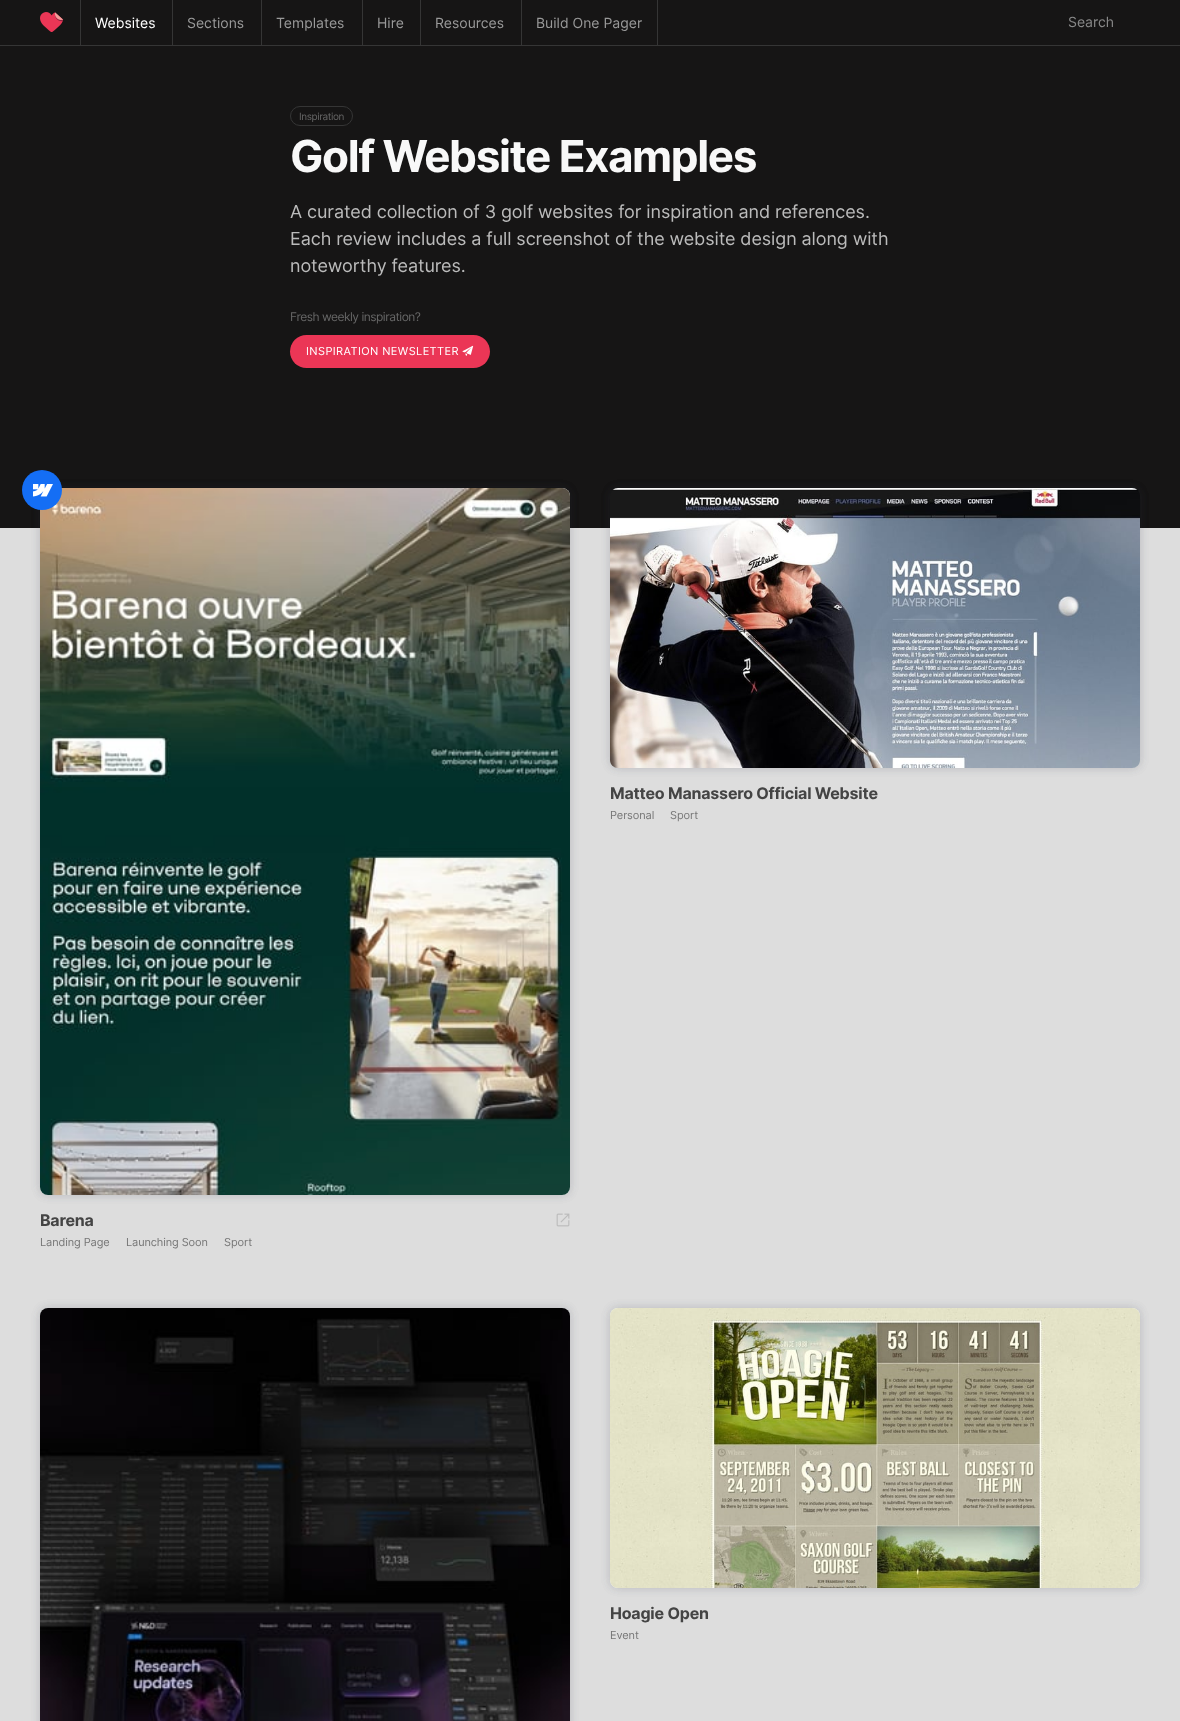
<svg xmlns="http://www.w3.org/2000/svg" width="1180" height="1721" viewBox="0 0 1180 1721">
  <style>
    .t1 { font: 14px Inter; fill: #fff; }
    .t2 { font: 14px Inter; fill: #999; }
    .t3 { font: 14px Inter; fill: #888; }
    .t4 { font: 10px Inter; letter-spacing: -0.4px; fill: #666; }
    .t5 { font: bold 44px Inter; letter-spacing: -1.4px; fill: #f8f8f8; }
    .t6 { font: 18px Inter; letter-spacing: -0.1px; fill: #bbb; }
    .t7 { font: 12px Inter; letter-spacing: -0.5px; fill: #666; }
    .t8 { font: 11px Inter; letter-spacing: 0.4px; fill: #fff; }
    .t9 { font: bold 16px Inter; letter-spacing: -0.2px; fill: #444; }
    .t10 { font: 11px Inter; letter-spacing: -0.1px; fill: #777; }
  </style>
  <rect width="100%" height="100%" fill="#ddd"/>
  <rect x="0" y="0" width="1180" height="45" fill="#161515"/>
  <rect x="0" y="45" width="1180" height="1" fill="#353535"/>
  <image x="40" y="12" width="24" height="20" href="images/1.png"/>
  <rect x="80" y="0" width="1" height="46" fill="#353535"/>
  <text x="95" y="28" class="t1">Websites</text>
  <rect x="172" y="0" width="1" height="46" fill="#353535"/>
  <text x="187" y="28" class="t2">Sections</text>
  <rect x="261" y="0" width="1" height="46" fill="#353535"/>
  <text x="276" y="28" class="t2">Templates</text>
  <rect x="362" y="0" width="1" height="46" fill="#353535"/>
  <text x="377" y="28" class="t2">Hire</text>
  <rect x="420" y="0" width="1" height="46" fill="#353535"/>
  <text x="435" y="28" class="t2">Resources</text>
  <rect x="657" y="0" width="1" height="46" fill="#353535"/>
  <rect x="521" y="0" width="1" height="46" fill="#353535"/>
  <text x="536" y="28" class="t2">Build One Pager</text>
  <text x="1068" y="27" class="t3">Search</text>
  <rect x="0" y="46" width="1180" height="482" fill="#161515"/>
  <rect x="290.5" y="106.5" width="62" height="19" rx="9.5" fill="none" stroke="#353535"/>
  <text x="299" y="120" class="t4">Inspiration</text>
  <text x="290" y="172" class="t5">Golf Website Examples</text>
  <text x="290" y="218" class="t6">A curated collection of 3 golf websites for inspiration and references.</text>
  <text x="290" y="245" class="t6">Each review includes a full screenshot of the website design along with</text>
  <text x="290" y="272" class="t6">noteworthy features.</text>
  <text x="290" y="321" class="t7">Fresh weekly inspiration?</text>
  <rect x="290" y="335" width="200" height="33" rx="16.5" fill="#eb3656"/>
  <text x="306" y="355" class="t8">INSPIRATION NEWSLETTER</text>
  <image x="462" y="345" width="12" height="11" href="images/2.png"/>
  <rect x="610" y="488" width="530" height="280" rx="8" fill="#2731411a" filter="blur(5px)"/>
  <rect x="610" y="488" width="530" height="280" rx="8" fill="#2731411a" filter="blur(5px)"/>
  <image x="610" y="488" width="530" height="280" href="images/3.png"/>
  <text x="610" y="799" class="t9">Matteo Manassero Official Website</text>
  <text x="610" y="819" class="t10">Personal</text>
  <text x="670" y="819" class="t10">Sport</text>
  <rect x="40" y="488" width="530" height="707" rx="8" fill="#2731411a" filter="blur(5px)"/>
  <rect x="40" y="488" width="530" height="707" rx="8" fill="#fff"/>
  <rect x="40" y="488" width="530" height="707" rx="8" fill="#2731411a" filter="blur(5px)"/>
  <image x="40" y="488" width="530" height="707" href="images/5.png"/>
  <circle cx="42" cy="490" r="20" fill="#146ef5"/>
  <image x="33" y="484" width="20" height="13" href="images/4.png"/>
  <text x="40" y="1226" class="t9">Barena</text>
  <image x="556" y="1213" width="14" height="14" href="images/6.png"/>
  <text x="40" y="1246" class="t10">Landing Page</text>
  <text x="126" y="1246" class="t10">Launching Soon</text>
  <text x="224" y="1246" class="t10">Sport</text>
  <rect x="40" y="1308" width="530" height="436" rx="8" fill="#2731411a" filter="blur(5px)"/>
  <rect x="40" y="1308" width="530" height="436" rx="8" fill="#2731411a" filter="blur(5px)"/>
  <image x="40" y="1308" width="530" height="413" href="images/7.png"/>
  <rect x="610" y="1308" width="530" height="280" rx="8" fill="#2731411a" filter="blur(5px)"/>
  <rect x="610" y="1308" width="530" height="280" rx="8" fill="#fff"/>
  <rect x="610" y="1308" width="530" height="280" rx="8" fill="#2731411a" filter="blur(5px)"/>
  <image x="610" y="1308" width="530" height="280" href="images/8.png"/>
  <text x="610" y="1619" class="t9">Hoagie Open</text>
  <text x="610" y="1639" class="t10">Event</text>
</svg>
